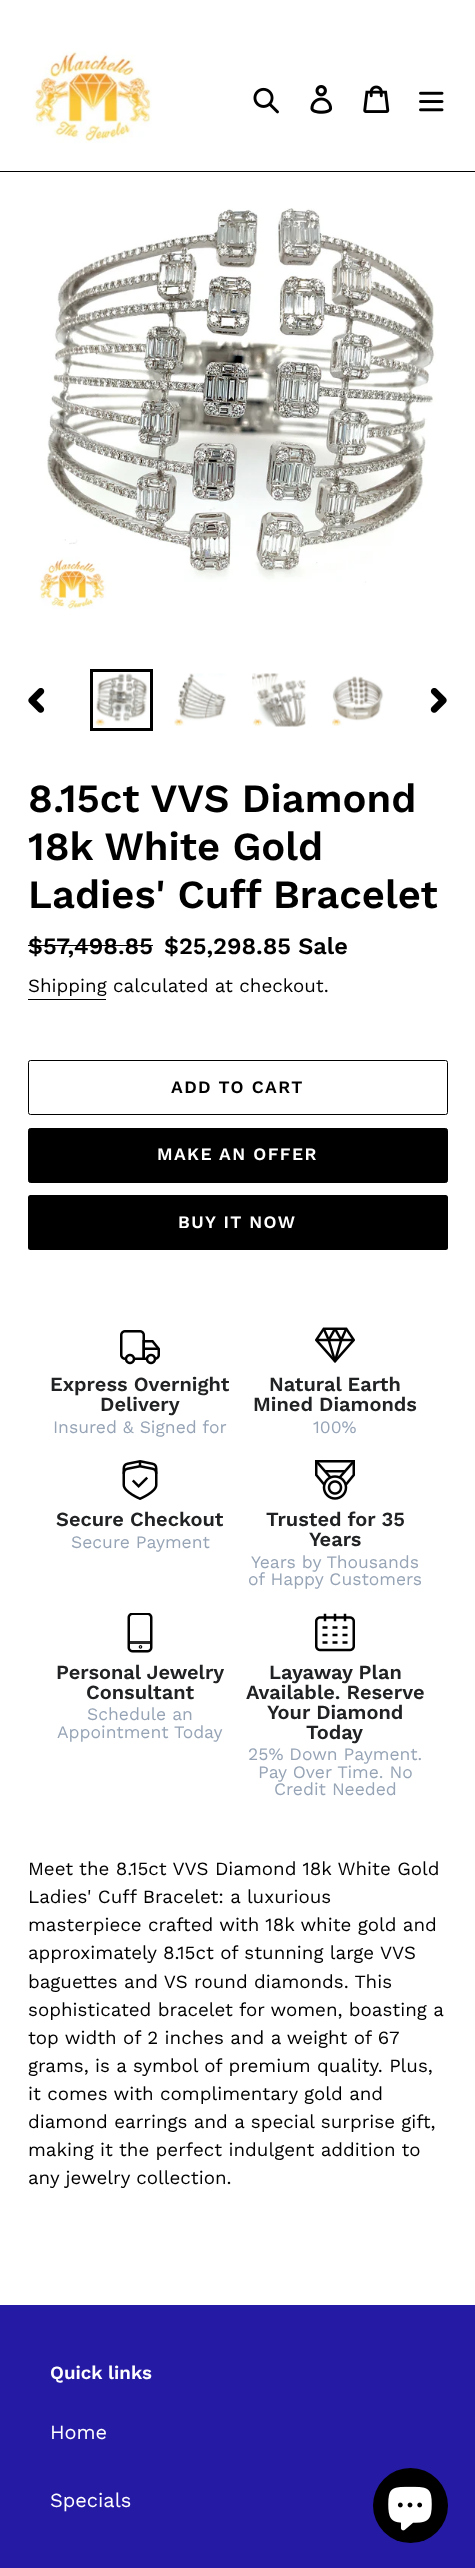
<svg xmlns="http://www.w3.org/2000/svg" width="475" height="2568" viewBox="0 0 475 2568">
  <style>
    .t1 { font: 600 40px Work Sans; fill: #000; }
    .t2 { font: 600 23.5px Work Sans; fill: #000; }
    .t3 { font: 18.75px Work Sans; fill: #000; }
    .t4 { font: 600 17.5px Work Sans; letter-spacing: 1.4px; fill: #000; }
    .t5 { font: 600 17.5px Work Sans; letter-spacing: 1.4px; fill: #fff; }
    .t6 { font: 600 20px Work Sans; fill: #202223; }
    .t7 { font: 17.5px Work Sans; fill: #96a4b6; }
    .t8 { font: 600 18.75px Work Sans; fill: #fff; }
    .t9 { font: 20px Work Sans; fill: #fff; }
  </style>
  <rect width="100%" height="100%" fill="#fff"/>
  <rect x="0" y="171" width="475" height="1" fill="#000"/>
  <image x="33" y="51" width="119" height="92" href="images/1.png"/>
  <image x="253" y="87" width="26" height="27" href="images/2.png"/>
  <image x="310" y="85" width="23" height="29" href="images/3.png"/>
  <image x="363" y="85" width="27" height="28" href="images/4.png"/>
  <image x="419" y="91" width="25" height="21" href="images/5.png"/>
  <image x="39" y="208" width="397" height="402" href="images/6.png"/>
  <image x="28" y="688" width="17" height="25" href="images/7.png"/>
  <rect x="91.5" y="670.5" width="60" height="59" fill="none" stroke="#000" stroke-width="3"/>
  <image x="95" y="673" width="53" height="53" href="images/8.png"/>
  <image x="174" y="673" width="52" height="53" href="images/9.png"/>
  <image x="252" y="673" width="54" height="54" href="images/10.png"/>
  <image x="332" y="676" width="52" height="50" href="images/11.png"/>
  <image x="430" y="688" width="17" height="25" href="images/12.png"/>
  <text x="28" y="812" class="t1">8.15ct VVS Diamond</text>
  <text x="28" y="860" class="t1">18k White Gold</text>
  <text x="28" y="908" class="t1">Ladies' Cuff Bracelet</text>
  <text x="28" y="954" class="t2">$57,498.85</text>
  <rect x="28" y="945" width="125" height="1" fill="#000"/>
  <text x="164" y="954" class="t2">$25,298.85 Sale</text>
  <text x="28" y="992" class="t3">Shipping calculated at checkout.</text>
  <rect x="28" y="999" width="78" height="1" fill="#000"/>
  <rect x="28.5" y="1060.5" width="419" height="54" rx="2" fill="none" stroke="#000"/>
  <text x="171" y="1093" class="t4">ADD TO CART</text>
  <rect x="28.5" y="1128.5" width="419" height="54" rx="2" fill="#000" stroke="#000"/>
  <text x="157" y="1160" class="t5">MAKE AN OFFER</text>
  <rect x="28" y="1195" width="420" height="55" rx="2.5" fill="#000"/>
  <text x="178" y="1228" class="t5">BUY IT NOW</text>
  <image x="120" y="1330" width="40" height="35" href="images/13.png"/>
  <text x="50" y="1391" class="t6">Express Overnight</text>
  <text x="100" y="1411" class="t6">Delivery</text>
  <text x="53" y="1433" class="t7">Insured &amp; Signed for</text>
  <image x="315" y="1327" width="40" height="36" href="images/14.png"/>
  <text x="269" y="1391" class="t6">Natural Earth</text>
  <text x="253" y="1411" class="t6">Mined Diamonds</text>
  <text x="313" y="1433" class="t7">100%</text>
  <image x="122" y="1460" width="36" height="40" href="images/15.png"/>
  <text x="56" y="1526" class="t6">Secure Checkout</text>
  <text x="71" y="1548" class="t7">Secure Payment</text>
  <image x="315" y="1460" width="40" height="40" href="images/16.png"/>
  <text x="266" y="1526" class="t6">Trusted for 35</text>
  <text x="309" y="1546" class="t6">Years</text>
  <text x="251" y="1568" class="t7">Years by Thousands</text>
  <text x="248" y="1585" class="t7">of Happy Customers</text>
  <image x="127" y="1613" width="26" height="40" href="images/17.png"/>
  <text x="56" y="1679" class="t6">Personal Jewelry</text>
  <text x="86" y="1699" class="t6">Consultant</text>
  <text x="87" y="1720" class="t7">Schedule an</text>
  <text x="57" y="1738" class="t7">Appointment Today</text>
  <image x="315" y="1613" width="40" height="39" href="images/18.png"/>
  <text x="269" y="1679" class="t6">Layaway Plan</text>
  <text x="246" y="1699" class="t6">Available. Reserve</text>
  <text x="267" y="1719" class="t6">Your Diamond</text>
  <text x="306" y="1739" class="t6">Today</text>
  <text x="248" y="1760" class="t7">25% Down Payment.</text>
  <text x="258" y="1778" class="t7">Pay Over Time. No</text>
  <text x="274" y="1795" class="t7">Credit Needed</text>
  <text x="28" y="1875" class="t3">Meet the 8.15ct VVS Diamond 18k White Gold</text>
  <text x="28" y="1903" class="t3">Ladies' Cuff Bracelet: a luxurious</text>
  <text x="28" y="1931" class="t3">masterpiece crafted with 18k white gold and</text>
  <text x="28" y="1959" class="t3">approximately 8.15ct of stunning large VVS</text>
  <text x="28" y="1988" class="t3">baguettes and VS round diamonds. This</text>
  <text x="28" y="2016" class="t3">sophisticated bracelet for women, boasting a</text>
  <text x="28" y="2044" class="t3">top width of 2 inches and a weight of 67</text>
  <text x="28" y="2072" class="t3">grams, is a symbol of premium quality. Plus,</text>
  <text x="28" y="2100" class="t3">it comes with complimentary gold and</text>
  <text x="28" y="2128" class="t3">diamond earrings and a special surprise gift,</text>
  <text x="28" y="2156" class="t3">making it the perfect indulgent addition to</text>
  <text x="28" y="2184" class="t3">any jewelry collection.</text>
  <rect x="0" y="2305" width="475" height="263" fill="#251aa3"/>
  <text x="50" y="2379" class="t8">Quick links</text>
  <text x="50" y="2439" class="t9">Home</text>
  <text x="50" y="2507" class="t9">Specials</text>
  <circle cx="410.5" cy="2505.5" r="37.5" fill="#000"/>
  <image x="388" y="2486" width="44" height="45" href="images/19.png"/>
</svg>
